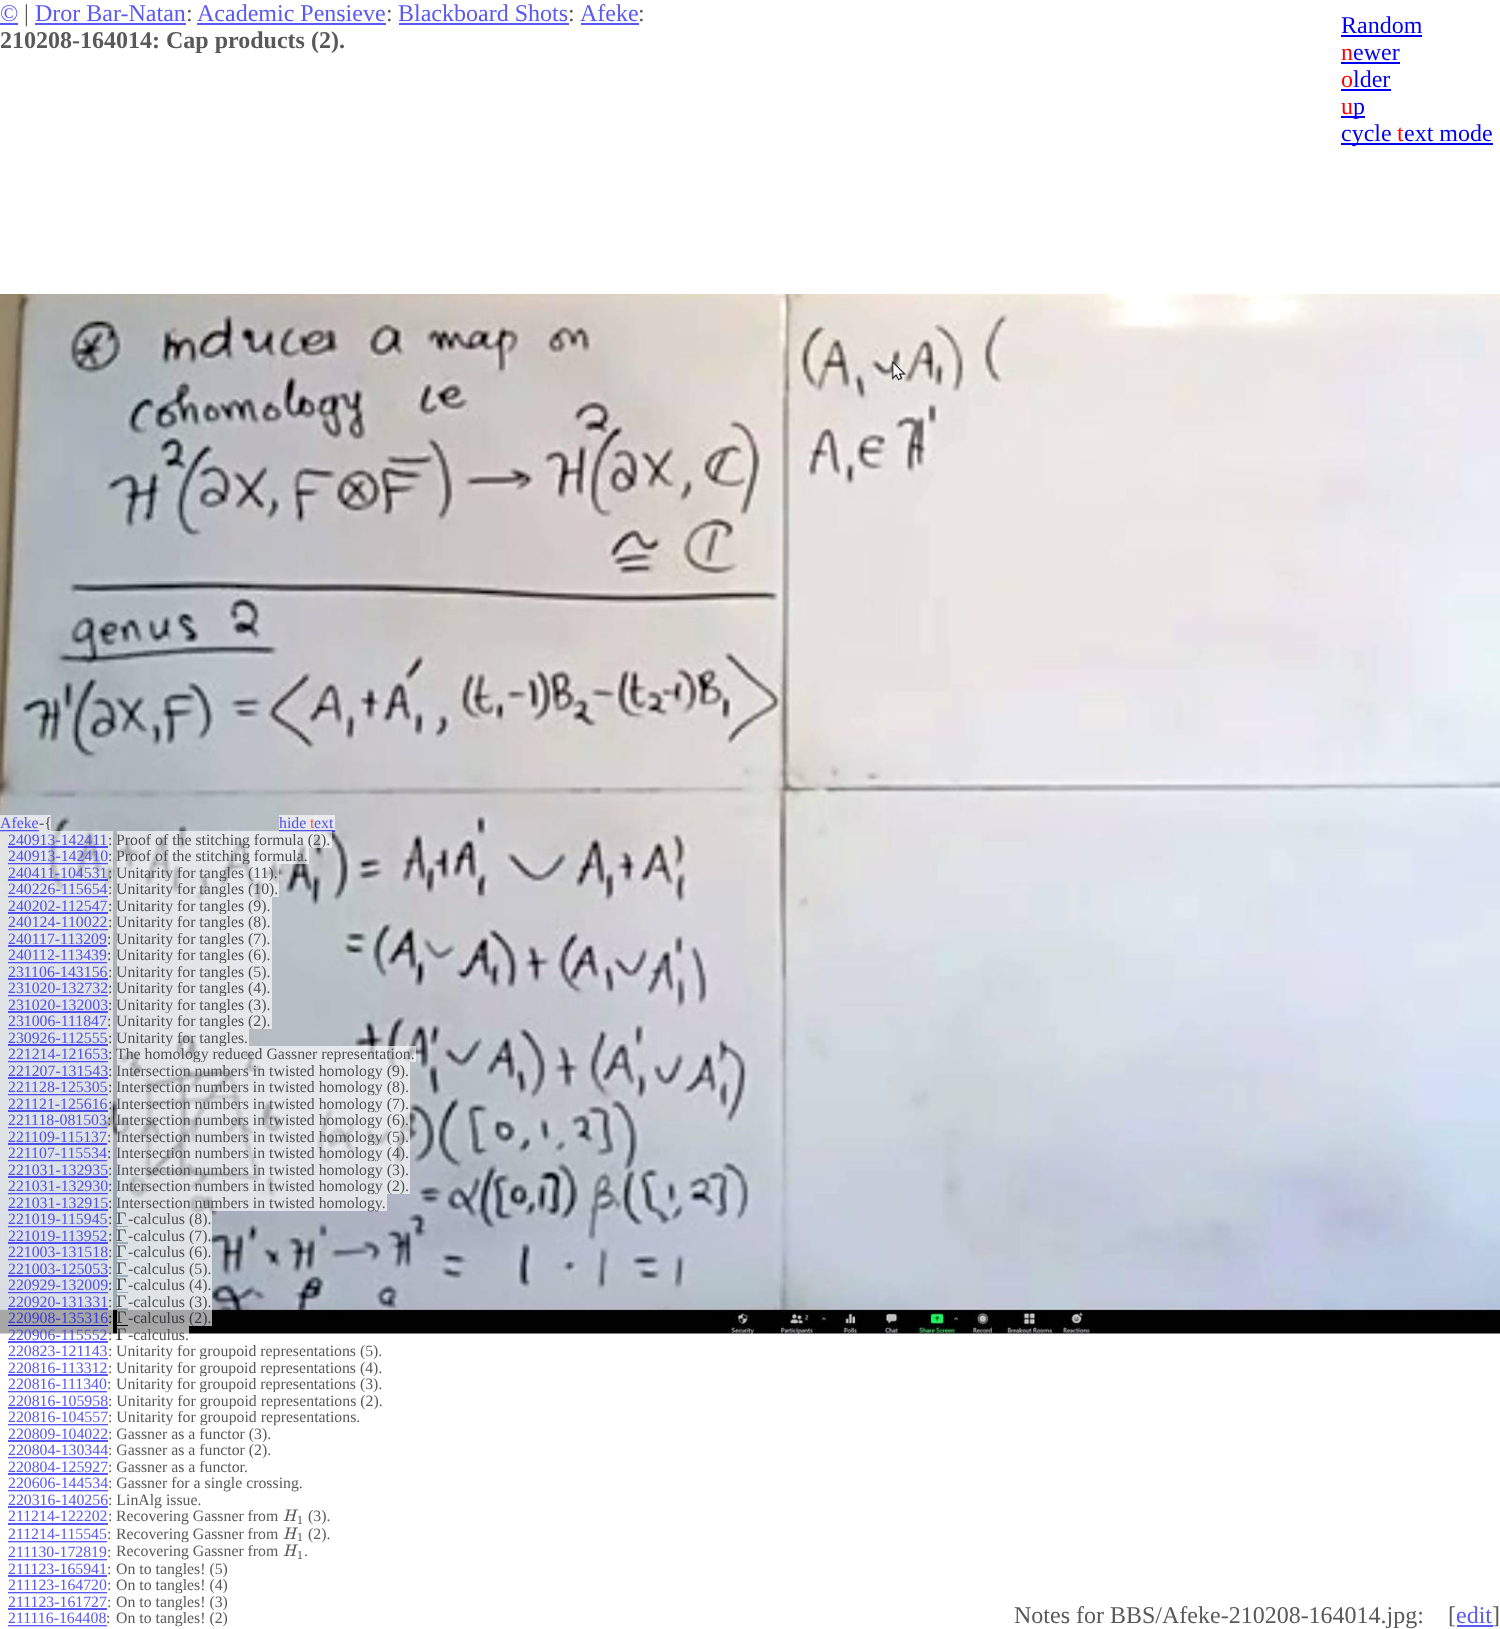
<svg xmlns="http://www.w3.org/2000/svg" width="1500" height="1629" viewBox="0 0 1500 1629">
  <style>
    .t1 { font: 24px Liberation Serif; fill: #5959f4; }
    .t2 { font: 24px Liberation Serif; fill: #595959; }
    .t3 { font: bold 24px Liberation Serif; fill: #595959; }
    .t4 { font: 24px Liberation Serif; fill: #00e; }
    .t5 { font: 24px Liberation Serif; fill: #f00; }
    .t6 { font: 15.8px Liberation Serif; fill: #4f50eb; }
    .t7 { font: 15.8px Liberation Serif; fill: #4f5051; }
    .t8 { font: 15.8px Liberation Serif; fill: #f75252; }
    .t9 { font: 15.8px Liberation Serif; fill: #3f4041; }
    .t10 { font: 15.8px Liberation Serif; fill: #383a3f; }
    .t11 { font: 17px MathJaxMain; fill: #4f5051; }
    .t12 { font: 17px MathJaxMain; fill: #383a3f; }
    .t13 { font: 15.8px Liberation Serif; fill: #3a3ad5; }
    .t14 { font: 15.8px Liberation Serif; fill: #000; }
    .t15 { font: 17px MathJaxMain; fill: #373737; }
    .t16 { font: 17px MathJaxMain; fill: #3f4041; }
    .t17 { font: 15.8px Liberation Serif; fill: #5959f4; }
    .t18 { font: 15.8px Liberation Serif; fill: #595959; }
    .t19 { font: italic 17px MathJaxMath; fill: #595959; }
    .t20 { font: 12px MathJaxMain; fill: #595959; }
  </style>
  <rect width="100%" height="100%" fill="#fff"/>
  <text x="0" y="21" class="t1">©</text>
  <rect x="0" y="23" width="18" height="2" fill="#5959f4"/>
  <text x="24" y="21" class="t2">|</text>
  <text x="35" y="21" class="t1">Dror Bar-Natan</text>
  <rect x="35" y="23" width="151" height="2" fill="#5959f4"/>
  <text x="186" y="21" class="t2">:</text>
  <text x="197" y="21" class="t1">Academic Pensieve</text>
  <rect x="197" y="23" width="189" height="2" fill="#5959f4"/>
  <text x="386" y="21" class="t2">:</text>
  <text x="398" y="21" class="t1">Blackboard Shots</text>
  <rect x="399" y="23" width="170" height="2" fill="#5959f4"/>
  <text x="568" y="21" class="t2">:</text>
  <text x="580" y="21" class="t1">Afeke</text>
  <rect x="581" y="23" width="58" height="2" fill="#5959f4"/>
  <text x="638" y="21" class="t2">:</text>
  <text x="0" y="48" class="t3">210208-164014: Cap products (2).</text>
  <text x="1341" y="33" class="t4">Random</text>
  <rect x="1341" y="35" width="81" height="2" fill="#00e"/>
  <text x="1341" y="60" class="t5">n</text>
  <text x="1353" y="60" class="t4">ewer</text>
  <rect x="1341" y="62" width="59" height="2" fill="#00e"/>
  <text x="1341" y="87" class="t5">o</text>
  <rect x="1341" y="89" width="50" height="2" fill="#00e"/>
  <text x="1353" y="87" class="t4">lder</text>
  <text x="1341" y="114" class="t5">u</text>
  <rect x="1341" y="116" width="24" height="2" fill="#00e"/>
  <text x="1353" y="114" class="t4">p</text>
  <rect x="1341" y="143" width="152" height="2" fill="#00e"/>
  <text x="1341" y="141" class="t4">cycle</text>
  <text x="1397" y="141" class="t5">t</text>
  <text x="1404" y="141" class="t4">ext mode</text>
  <image x="0" y="294" width="1500" height="1040" href="images/1.png"/>
  <rect x="0" y="815" width="39" height="16" fill="#ffffffa6"/>
  <text x="0" y="828" class="t6">Afeke</text>
  <rect x="39" y="815" width="12" height="16" fill="#ffffffa6"/>
  <text x="39" y="828" class="t7">-{</text>
  <rect x="0" y="830" width="39" height="2" fill="#0000eea6"/>
  <rect x="279" y="815" width="32" height="16" fill="#ffffffa6"/>
  <text x="279" y="828" class="t6">hide</text>
  <rect x="311" y="815" width="5" height="16" fill="#ffffffa6"/>
  <text x="310" y="828" class="t8">t</text>
  <rect x="315" y="815" width="20" height="16" fill="#ffffffa6"/>
  <rect x="279" y="830" width="32" height="2" fill="#0000eea6"/>
  <rect x="311" y="830" width="5" height="2" fill="#0000eea6"/>
  <rect x="315" y="830" width="20" height="2" fill="#0000eea6"/>
  <text x="314" y="828" class="t6">ext</text>
  <rect x="0" y="831" width="113" height="17" fill="#ffffffa6"/>
  <text x="8" y="845" class="t6">240913-142411</text>
  <rect x="8" y="846" width="100" height="2" fill="#0000eea6"/>
  <text x="108" y="845" class="t7">:</text>
  <rect x="117" y="831" width="215" height="17" fill="#ffffffa6"/>
  <text x="116" y="845" class="t7">Proof of the stitching formula (2).</text>
  <rect x="0" y="848" width="113" height="16" fill="#ffffffa6"/>
  <text x="8" y="861" class="t6">240913-142410</text>
  <rect x="8" y="863" width="100" height="2" fill="#0000eea6"/>
  <text x="108" y="861" class="t7">:</text>
  <rect x="117" y="848" width="192" height="16" fill="#ffffffa6"/>
  <text x="116" y="861" class="t7">Proof of the stitching formula.</text>
  <rect x="0" y="864" width="113" height="17" fill="#ffffffa6"/>
  <text x="8" y="878" class="t6">240411-104531</text>
  <rect x="8" y="879" width="100" height="2" fill="#0000eea6"/>
  <text x="108" y="878" class="t9">:</text>
  <rect x="117" y="864" width="162" height="17" fill="#ffffffa6"/>
  <text x="116" y="878" class="t7">Unitarity for tangles (11).</text>
  <rect x="0" y="881" width="113" height="16" fill="#ffffffa6"/>
  <text x="8" y="894" class="t6">240226-115654</text>
  <rect x="8" y="896" width="100" height="2" fill="#0000eea6"/>
  <text x="108" y="894" class="t7">:</text>
  <rect x="117" y="881" width="162" height="16" fill="#ffffffa6"/>
  <text x="116" y="894" class="t7">Unitarity for tangles (10).</text>
  <rect x="0" y="897" width="113" height="17" fill="#ffffffa6"/>
  <text x="8" y="911" class="t6">240202-112547</text>
  <rect x="8" y="912" width="100" height="2" fill="#0000eea6"/>
  <text x="108" y="911" class="t9">:</text>
  <rect x="117" y="897" width="155" height="17" fill="#ffffffa6"/>
  <text x="116" y="911" class="t7">Unitarity for tangles (9).</text>
  <rect x="0" y="914" width="113" height="16" fill="#ffffffa6"/>
  <text x="8" y="927" class="t6">240124-110022</text>
  <rect x="8" y="929" width="100" height="2" fill="#0000eea6"/>
  <text x="108" y="927" class="t9">:</text>
  <rect x="117" y="914" width="155" height="16" fill="#ffffffa6"/>
  <text x="116" y="927" class="t7">Unitarity for tangles (8).</text>
  <rect x="0" y="930" width="113" height="17" fill="#ffffffa6"/>
  <text x="8" y="944" class="t6">240117-113209</text>
  <rect x="8" y="945" width="99" height="2" fill="#0000eea6"/>
  <text x="107" y="944" class="t9">:</text>
  <rect x="117" y="930" width="155" height="17" fill="#ffffffa6"/>
  <text x="116" y="944" class="t7">Unitarity for tangles (7).</text>
  <rect x="0" y="947" width="113" height="16" fill="#ffffffa6"/>
  <text x="8" y="960" class="t6">240112-113439</text>
  <rect x="8" y="962" width="99" height="2" fill="#0000eea6"/>
  <text x="107" y="960" class="t9">:</text>
  <rect x="117" y="947" width="155" height="16" fill="#ffffffa6"/>
  <text x="116" y="960" class="t7">Unitarity for tangles (6).</text>
  <rect x="0" y="963" width="113" height="17" fill="#ffffffa6"/>
  <text x="8" y="977" class="t6">231106-143156</text>
  <rect x="8" y="978" width="100" height="2" fill="#0000eea6"/>
  <text x="108" y="977" class="t7">:</text>
  <rect x="117" y="963" width="155" height="17" fill="#ffffffa6"/>
  <text x="116" y="977" class="t7">Unitarity for tangles (5).</text>
  <rect x="0" y="980" width="113" height="16" fill="#ffffffa6"/>
  <text x="8" y="993" class="t6">231020-132732</text>
  <rect x="8" y="995" width="100" height="2" fill="#0000eea6"/>
  <text x="108" y="993" class="t9">:</text>
  <rect x="117" y="980" width="155" height="16" fill="#ffffffa6"/>
  <text x="116" y="993" class="t7">Unitarity for tangles (4).</text>
  <rect x="0" y="996" width="113" height="17" fill="#ffffffa6"/>
  <text x="8" y="1010" class="t6">231020-132003</text>
  <rect x="8" y="1011" width="100" height="2" fill="#4f4fec"/>
  <text x="108" y="1010" class="t9">:</text>
  <rect x="117" y="996" width="155" height="17" fill="#ffffffa6"/>
  <text x="116" y="1010" class="t7">Unitarity for tangles (3).</text>
  <rect x="0" y="1013" width="113" height="16" fill="#ffffffa6"/>
  <text x="8" y="1026" class="t6">231006-111847</text>
  <rect x="8" y="1028" width="99" height="2" fill="#0000eea6"/>
  <text x="107" y="1026" class="t9">:</text>
  <rect x="117" y="1013" width="155" height="16" fill="#ffffffa6"/>
  <text x="116" y="1026" class="t7">Unitarity for tangles (2).</text>
  <rect x="0" y="1029" width="113" height="17" fill="#ffffffa6"/>
  <text x="8" y="1043" class="t6">230926-112555</text>
  <rect x="8" y="1044" width="100" height="2" fill="#4e4feb"/>
  <text x="108" y="1043" class="t9">:</text>
  <rect x="117" y="1029" width="132" height="17" fill="#ffffffa6"/>
  <text x="116" y="1043" class="t7">Unitarity for tangles.</text>
  <rect x="0" y="1046" width="113" height="16" fill="#ffffffa6"/>
  <text x="8" y="1059" class="t6">221214-121653</text>
  <rect x="8" y="1061" width="100" height="2" fill="#0000eea6"/>
  <text x="108" y="1059" class="t9">:</text>
  <rect x="117" y="1046" width="299" height="16" fill="#ffffffa6"/>
  <text x="116" y="1059" class="t7">The homology reduced Gassner representation.</text>
  <rect x="0" y="1062" width="113" height="17" fill="#ffffffa6"/>
  <text x="8" y="1076" class="t6">221207-131543</text>
  <rect x="8" y="1077" width="100" height="2" fill="#4e4feb"/>
  <text x="108" y="1076" class="t9">:</text>
  <rect x="117" y="1062" width="293" height="17" fill="#ffffffa6"/>
  <text x="116" y="1076" class="t7">Intersection numbers in twisted homology (9).</text>
  <rect x="0" y="1079" width="113" height="16" fill="#ffffffa6"/>
  <text x="8" y="1092" class="t6">221128-125305</text>
  <rect x="8" y="1094" width="100" height="2" fill="#0000eea6"/>
  <text x="108" y="1092" class="t9">:</text>
  <rect x="117" y="1079" width="293" height="16" fill="#ffffffa6"/>
  <text x="116" y="1092" class="t7">Intersection numbers in twisted homology (8).</text>
  <rect x="0" y="1095" width="113" height="17" fill="#ffffffa6"/>
  <text x="8" y="1109" class="t6">221121-125616</text>
  <rect x="8" y="1110" width="100" height="2" fill="#0000eea6"/>
  <text x="108" y="1109" class="t7">:</text>
  <rect x="117" y="1095" width="293" height="17" fill="#ffffffa6"/>
  <text x="116" y="1109" class="t7">Intersection numbers in twisted homology (7).</text>
  <rect x="0" y="1112" width="113" height="16" fill="#ffffffa6"/>
  <text x="8" y="1125" class="t6">221118-081503</text>
  <rect x="8" y="1127" width="99" height="2" fill="#0000eea6"/>
  <text x="107" y="1125" class="t9">:</text>
  <rect x="117" y="1112" width="293" height="16" fill="#ffffffa6"/>
  <text x="116" y="1125" class="t7">Intersection numbers in twisted homology (6).</text>
  <rect x="0" y="1128" width="113" height="17" fill="#ffffffa6"/>
  <text x="8" y="1142" class="t6">221109-115137</text>
  <rect x="8" y="1143" width="99" height="2" fill="#0000eea6"/>
  <text x="107" y="1142" class="t7">:</text>
  <rect x="117" y="1128" width="293" height="17" fill="#ffffffa6"/>
  <text x="116" y="1142" class="t7">Intersection numbers in twisted homology (5).</text>
  <rect x="0" y="1145" width="113" height="16" fill="#ffffffa6"/>
  <text x="8" y="1158" class="t6">221107-115534</text>
  <rect x="8" y="1160" width="99" height="2" fill="#0000eea6"/>
  <text x="107" y="1158" class="t10">:</text>
  <rect x="117" y="1145" width="293" height="16" fill="#ffffffa6"/>
  <text x="116" y="1158" class="t7">Intersection numbers in twisted homology (4).</text>
  <rect x="0" y="1161" width="113" height="17" fill="#ffffffa6"/>
  <text x="8" y="1175" class="t6">221031-132935</text>
  <rect x="8" y="1176" width="100" height="2" fill="#0000eea6"/>
  <text x="108" y="1175" class="t7">:</text>
  <rect x="117" y="1161" width="293" height="17" fill="#ffffffa6"/>
  <text x="116" y="1175" class="t7">Intersection numbers in twisted homology (3).</text>
  <rect x="0" y="1178" width="113" height="16" fill="#ffffffa6"/>
  <text x="8" y="1191" class="t6">221031-132930</text>
  <rect x="8" y="1193" width="100" height="2" fill="#0000eea6"/>
  <text x="108" y="1191" class="t10">:</text>
  <rect x="117" y="1178" width="293" height="16" fill="#ffffffa6"/>
  <text x="116" y="1191" class="t7">Intersection numbers in twisted homology (2).</text>
  <rect x="0" y="1194" width="113" height="17" fill="#ffffffa6"/>
  <text x="8" y="1208" class="t6">221031-132915</text>
  <rect x="8" y="1209" width="100" height="2" fill="#0000eea6"/>
  <text x="108" y="1208" class="t10">:</text>
  <rect x="117" y="1194" width="270" height="17" fill="#ffffffa6"/>
  <text x="116" y="1208" class="t7">Intersection numbers in twisted homology.</text>
  <rect x="0" y="1211" width="113" height="16" fill="#ffffffa6"/>
  <text x="8" y="1224" class="t6">221019-115945</text>
  <rect x="8" y="1226" width="100" height="2" fill="#0000eea6"/>
  <text x="108" y="1224" class="t10">:</text>
  <rect x="117" y="1211" width="11" height="15" fill="#ffffffa6"/>
  <rect x="128" y="1211" width="84" height="16" fill="#ffffffa6"/>
  <text x="116" y="1224" class="t11">Γ</text>
  <text x="128" y="1224" class="t7">-calculus (8).</text>
  <rect x="0" y="1227" width="113" height="17" fill="#ffffffa6"/>
  <text x="8" y="1241" class="t6">221019-113952</text>
  <rect x="8" y="1242" width="100" height="2" fill="#0000eea6"/>
  <text x="108" y="1241" class="t10">:</text>
  <rect x="117" y="1227" width="11" height="15" fill="#ffffffa6"/>
  <rect x="128" y="1227" width="84" height="17" fill="#ffffffa6"/>
  <text x="116" y="1241" class="t11">Γ</text>
  <text x="128" y="1241" class="t7">-calculus (7).</text>
  <rect x="0" y="1244" width="113" height="16" fill="#ffffffa6"/>
  <text x="8" y="1257" class="t6">221003-131518</text>
  <rect x="8" y="1259" width="100" height="2" fill="#0000eea6"/>
  <text x="108" y="1257" class="t7">:</text>
  <rect x="117" y="1244" width="11" height="15" fill="#ffffffa6"/>
  <rect x="128" y="1244" width="84" height="16" fill="#ffffffa6"/>
  <text x="116" y="1257" class="t11">Γ</text>
  <text x="128" y="1257" class="t7">-calculus (6).</text>
  <rect x="0" y="1260" width="113" height="17" fill="#ffffffa6"/>
  <text x="8" y="1274" class="t6">221003-125053</text>
  <rect x="8" y="1275" width="100" height="2" fill="#0000eea6"/>
  <text x="108" y="1274" class="t7">:</text>
  <rect x="117" y="1260" width="11" height="15" fill="#ffffffa6"/>
  <rect x="128" y="1260" width="84" height="17" fill="#ffffffa6"/>
  <text x="116" y="1274" class="t11">Γ</text>
  <text x="128" y="1274" class="t7">-calculus (5).</text>
  <rect x="0" y="1277" width="113" height="16" fill="#ffffffa6"/>
  <text x="8" y="1290" class="t6">220929-132009</text>
  <rect x="8" y="1292" width="100" height="2" fill="#0000eea6"/>
  <text x="108" y="1290" class="t10">:</text>
  <rect x="117" y="1277" width="11" height="15" fill="#dde3e6"/>
  <rect x="128" y="1277" width="84" height="16" fill="#ffffffa6"/>
  <text x="116" y="1290" class="t12">Γ</text>
  <text x="128" y="1290" class="t7">-calculus (4).</text>
  <rect x="0" y="1293" width="113" height="17" fill="#ffffffa6"/>
  <text x="8" y="1307" class="t6">220920-131331</text>
  <rect x="8" y="1308" width="100" height="2" fill="#0000eea6"/>
  <text x="108" y="1307" class="t7">:</text>
  <rect x="117" y="1293" width="11" height="15" fill="#ffffffa6"/>
  <rect x="128" y="1293" width="84" height="17" fill="#ffffffa6"/>
  <text x="116" y="1307" class="t11">Γ</text>
  <text x="128" y="1307" class="t7">-calculus (3).</text>
  <rect x="0" y="1310" width="113" height="16" fill="#ffffffa6"/>
  <text x="8" y="1323" class="t13">220908-135316</text>
  <rect x="8" y="1325" width="100" height="2" fill="#00009b"/>
  <text x="108" y="1323" class="t14">:</text>
  <rect x="117" y="1310" width="11" height="15" fill="#ffffffa6"/>
  <rect x="128" y="1310" width="84" height="16" fill="#ffffffa6"/>
  <text x="116" y="1323" class="t15">Γ</text>
  <text x="128" y="1323" class="t10">-calculus (2).</text>
  <rect x="0" y="1326" width="113" height="8" fill="#ffffffa6"/>
  <text x="8" y="1340" class="t6">220906-115552</text>
  <rect x="8" y="1341" width="100" height="2" fill="#5959f4"/>
  <text x="108" y="1340" class="t7">:</text>
  <rect x="117" y="1326" width="11" height="8" fill="#ffffffa6"/>
  <rect x="128" y="1326" width="61" height="8" fill="#ffffffa6"/>
  <text x="116" y="1340" class="t16">Γ</text>
  <text x="128" y="1340" class="t7">-calculus.</text>
  <text x="8" y="1356" class="t17">220823-121143</text>
  <rect x="8" y="1358" width="100" height="1" fill="#5959f4"/>
  <rect x="8" y="1359" width="100" height="1" fill="#c5c5fb"/>
  <text x="108" y="1356" class="t18">:</text>
  <text x="116" y="1356" class="t18">Unitarity for groupoid representations (5).</text>
  <text x="8" y="1373" class="t17">220816-113312</text>
  <rect x="8" y="1374" width="100" height="2" fill="#5959f4"/>
  <text x="108" y="1373" class="t18">:</text>
  <text x="116" y="1373" class="t18">Unitarity for groupoid representations (4).</text>
  <rect x="166" y="1359" width="210" height="1" fill="#ffffffa6"/>
  <text x="8" y="1389" class="t17">220816-111340</text>
  <rect x="8" y="1391" width="99" height="1" fill="#5959f4"/>
  <rect x="8" y="1392" width="99" height="1" fill="#c5c5fb"/>
  <text x="107" y="1389" class="t18">:</text>
  <text x="116" y="1389" class="t18">Unitarity for groupoid representations (3).</text>
  <rect x="166" y="1376" width="210" height="1" fill="#ffffffa6"/>
  <rect x="166" y="1392" width="210" height="1" fill="#ffffffa6"/>
  <text x="8" y="1406" class="t17">220816-105958</text>
  <rect x="8" y="1407" width="100" height="2" fill="#5959f4"/>
  <text x="108" y="1406" class="t18">: Unitarity for groupoid representations (2).</text>
  <rect x="166" y="1409" width="112" height="1" fill="#ffffffa6"/>
  <text x="8" y="1422" class="t17">220816-104557</text>
  <rect x="8" y="1424" width="100" height="1" fill="#5959f4"/>
  <rect x="8" y="1425" width="100" height="1" fill="#c5c5fb"/>
  <text x="108" y="1422" class="t18">: Unitarity for groupoid representations.</text>
  <rect x="166" y="1425" width="67" height="1" fill="#ffffffa6"/>
  <text x="8" y="1439" class="t17">220809-104022</text>
  <rect x="8" y="1440" width="100" height="2" fill="#5959f4"/>
  <text x="108" y="1439" class="t18">: Gassner as a functor (3).</text>
  <rect x="253" y="1442" width="11" height="1" fill="#ffffffa6"/>
  <text x="8" y="1455" class="t17">220804-130344</text>
  <rect x="8" y="1457" width="100" height="1" fill="#5959f4"/>
  <rect x="8" y="1458" width="100" height="1" fill="#c5c5fb"/>
  <text x="108" y="1455" class="t18">: Gassner as a functor (2).</text>
  <text x="8" y="1472" class="t17">220804-125927</text>
  <rect x="8" y="1473" width="100" height="2" fill="#5959f4"/>
  <text x="108" y="1472" class="t18">: Gassner as a functor.</text>
  <text x="8" y="1488" class="t17">220606-144534</text>
  <rect x="8" y="1490" width="100" height="1" fill="#5959f4"/>
  <rect x="8" y="1491" width="100" height="1" fill="#c5c5fb"/>
  <text x="108" y="1488" class="t18">: Gassner for a single crossing.</text>
  <text x="8" y="1505" class="t17">220316-140256</text>
  <rect x="8" y="1506" width="100" height="2" fill="#5959f4"/>
  <text x="108" y="1505" class="t18">: LinAlg issue.</text>
  <text x="8" y="1521" class="t17">211214-122202</text>
  <rect x="8" y="1523" width="100" height="2" fill="#5959f4"/>
  <text x="108" y="1521" class="t18">:</text>
  <rect x="156" y="1508" width="5" height="1" fill="#ffffffa6"/>
  <text x="116" y="1521" class="t18">Recovering Gassner from</text>
  <text x="283" y="1521" class="t19">H</text>
  <text x="297" y="1524" class="t20">1</text>
  <text x="308" y="1521" class="t18">(3).</text>
  <text x="8" y="1539" class="t17">211214-115545</text>
  <rect x="8" y="1541" width="99" height="1" fill="#5959f4"/>
  <rect x="8" y="1542" width="99" height="1" fill="#c5c5fb"/>
  <text x="107" y="1539" class="t18">:</text>
  <text x="116" y="1539" class="t18">Recovering Gassner from</text>
  <text x="283" y="1539" class="t19">H</text>
  <text x="297" y="1541" class="t20">1</text>
  <text x="308" y="1539" class="t18">(2).</text>
  <text x="8" y="1557" class="t17">211130-172819</text>
  <rect x="8" y="1559" width="99" height="1" fill="#5959f4"/>
  <rect x="8" y="1560" width="99" height="1" fill="#c5c5fb"/>
  <text x="107" y="1557" class="t18">:</text>
  <rect x="183" y="1542" width="5" height="1" fill="#ffffffa6"/>
  <text x="116" y="1556" class="t18">Recovering Gassner from</text>
  <text x="283" y="1556" class="t19">H</text>
  <text x="297" y="1559" class="t20">1</text>
  <text x="304" y="1556" class="t18">.</text>
  <text x="8" y="1574" class="t17">211123-165941</text>
  <rect x="8" y="1575" width="99" height="2" fill="#5959f4"/>
  <text x="107" y="1574" class="t18">:</text>
  <text x="116" y="1574" class="t18">On to tangles! (5)</text>
  <text x="8" y="1590" class="t17">211123-164720</text>
  <rect x="8" y="1592" width="99" height="1" fill="#5959f4"/>
  <rect x="8" y="1593" width="99" height="1" fill="#c5c5fb"/>
  <text x="107" y="1590" class="t18">:</text>
  <text x="116" y="1590" class="t18">On to tangles! (4)</text>
  <rect x="177" y="1577" width="48" height="1" fill="#ffffffa6"/>
  <text x="8" y="1607" class="t17">211123-161727</text>
  <rect x="8" y="1608" width="99" height="2" fill="#5959f4"/>
  <text x="107" y="1607" class="t18">:</text>
  <text x="116" y="1607" class="t18">On to tangles! (3)</text>
  <rect x="177" y="1593" width="48" height="1" fill="#ffffffa6"/>
  <text x="8" y="1623" class="t17">211116-164408</text>
  <rect x="8" y="1625" width="99" height="1" fill="#5959f4"/>
  <rect x="8" y="1626" width="99" height="1" fill="#c5c5fb"/>
  <text x="106" y="1623" class="t18">:</text>
  <text x="116" y="1623" class="t18">On to tangles! (2)</text>
  <rect x="177" y="1610" width="48" height="1" fill="#ffffffa6"/>
  <rect x="177" y="1626" width="5" height="1" fill="#ffffffa6"/>
  <text x="1014" y="1623" class="t2" xml:space="preserve">Notes for BBS/Afeke-210208-164014.jpg:    [</text>
  <text x="1456" y="1623" class="t1">edit</text>
  <rect x="1457" y="1625" width="36" height="2" fill="#5959f4"/>
  <text x="1492" y="1623" class="t2">]</text>
</svg>
